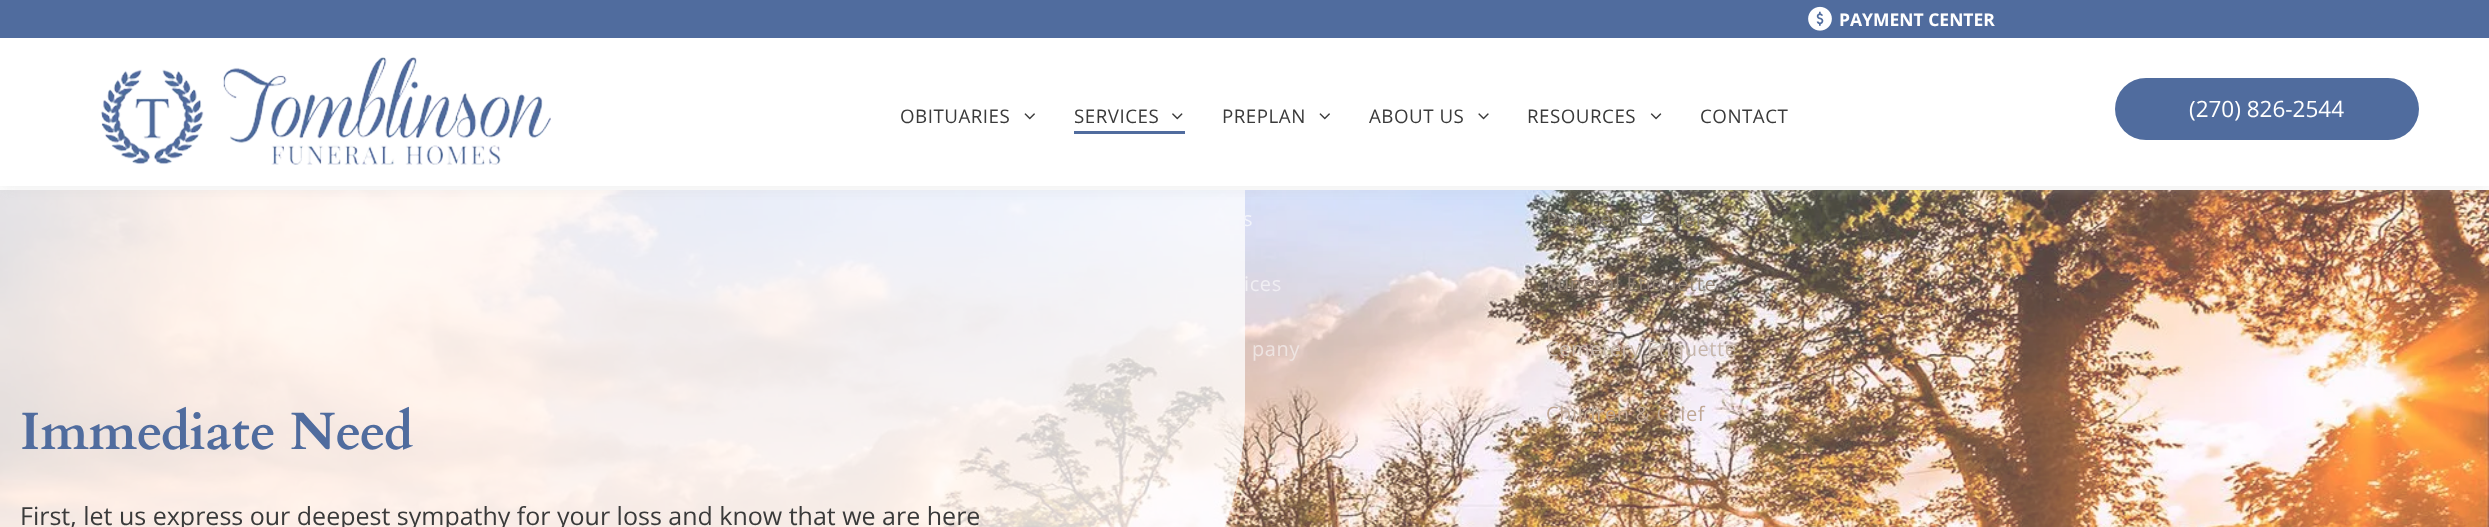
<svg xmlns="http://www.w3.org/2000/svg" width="2489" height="527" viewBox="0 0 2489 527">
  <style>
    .t1 { font: bold 17.5px Open Sans; fill: #fff; }
    .t2 { font: 18.75px Open Sans; letter-spacing: 0.5px; fill: #3a3a3a; }
    .t3 { font: 20px Open Sans; letter-spacing: 0.6px; fill: #f2f4fb; }
    .t4 { font: 20px Open Sans; letter-spacing: 0.6px; fill: #f0eef3; }
    .t5 { font: 20px Open Sans; letter-spacing: 0.6px; fill: #eee4e1; }
    .t6 { font: 20px Open Sans; letter-spacing: 0.6px; fill: #8a8375; }
    .t7 { font: 20px Open Sans; letter-spacing: 0.6px; fill: #938477; }
    .t8 { font: 20px Open Sans; letter-spacing: 0.6px; fill: #c6b5aa; }
    .t9 { font: 20px Open Sans; letter-spacing: 0.6px; fill: #bfa794; }
    .t10 { font: 22.5px Open Sans; fill: #fff; }
    .t11 { font: bold 52.5px Cardo; fill: #506c9e; }
    .t12 { font: 25px Open Sans; fill: #3a3a3a; }
  </style>
  <defs>
    <clipPath id="clip1"><rect x="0" y="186" width="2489" height="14"/></clipPath>
  </defs>
  <rect width="100%" height="100%" fill="#fff"/>
  <image x="0" y="190" width="2489" height="337" href="images/7.png"/>
  <path d="M0 190H1245V405C1245 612 1077 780 870 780H0Z" fill="#ffffffbf"/>
  <g clip-path="url(#clip1)">
    <rect x="0" y="4" width="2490" height="186" fill="#c8c8c840" filter="blur(7px)"/>
  </g>
  <rect x="0" y="0" width="2489" height="38" fill="#506c9e"/>
  <image x="1808" y="6" width="24" height="25" href="images/1.png"/>
  <text x="1839" y="26" class="t1">PAYMENT CENTER</text>
  <image x="100" y="57" width="451" height="108" href="images/2.png"/>
  <text x="900" y="123" class="t2">OBITUARIES</text>
  <image x="1024" y="113" width="11" height="7" href="images/3.png"/>
  <text x="1074" y="123" class="t2">SERVICES</text>
  <image x="1172" y="113" width="11" height="7" href="images/4.png"/>
  <rect x="1074" y="131" width="111" height="3" fill="#506c9e"/>
  <text x="1243" y="226" class="t3">s</text>
  <text x="1244" y="291" class="t4">ices</text>
  <text x="1252" y="356" class="t5">pany</text>
  <text x="1222" y="123" class="t2">PREPLAN</text>
  <image x="1319" y="113" width="11" height="7" href="images/3.png"/>
  <text x="1369" y="123" class="t2">ABOUT US</text>
  <image x="1478" y="113" width="11" height="7" href="images/5.png"/>
  <text x="1527" y="123" class="t2">RESOURCES</text>
  <image x="1650" y="113" width="12" height="7" href="images/6.png"/>
  <text x="1546" y="226" class="t6">Payment Center</text>
  <text x="1546" y="291" class="t7">Funeral Etiquette</text>
  <text x="1546" y="356" class="t8">Cemetery Etiquette</text>
  <text x="1546" y="421" class="t9">Children &amp; Grief</text>
  <text x="1700" y="123" class="t2">CONTACT</text>
  <rect x="2115" y="78" width="304" height="62" rx="31" fill="#506c9e"/>
  <text x="2189" y="117" class="t10">(270) 826-2544</text>
  <text x="20" y="449" class="t11">Immediate Need</text>
  <text x="20" y="525" class="t12">First, let us express our deepest sympathy for your loss and know that we are here</text>
</svg>
